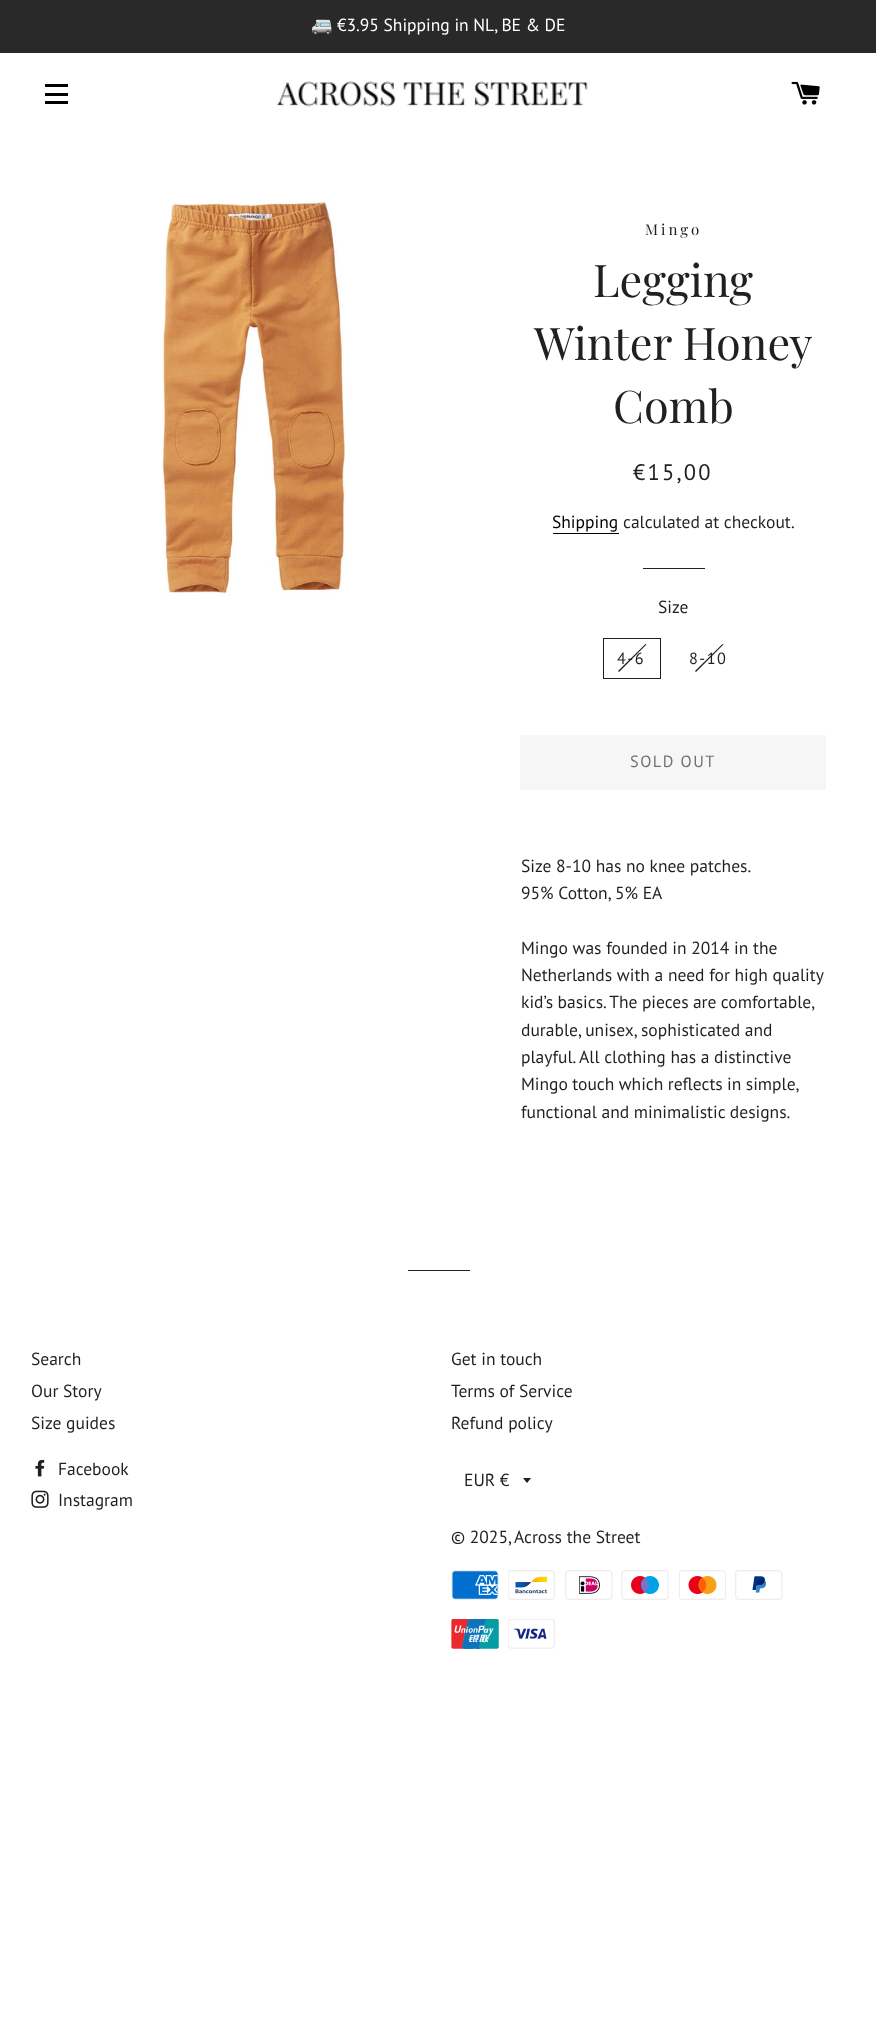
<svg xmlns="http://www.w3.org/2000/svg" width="876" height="2028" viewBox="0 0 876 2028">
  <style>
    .t1 { font: 17.5px Noto Color Emoji; fill: #fff; }
    .t2 { font: 17.5px PT Sans; fill: #fff; }
    .t3 { font: 15px Playfair Display; letter-spacing: 3px; fill: #1f2021; }
    .t4 { font: 45px Playfair Display; fill: #1f2021; }
    .t5 { font: 22.5px PT Sans; letter-spacing: 2.25px; fill: #1f2021; }
    .t6 { font: 17.5px PT Sans; fill: #000; }
    .t7 { font: 17.5px PT Sans; fill: #1f2021; }
    .t8 { font: 16.25px PT Sans; letter-spacing: 1.5px; fill: #1f2021; }
    .t9 { font: 16.25px PT Sans; letter-spacing: 1.5px; fill: #717171; }
  </style>
  <defs>
    <clipPath id="clip1"><rect x="523" y="1478" width="10" height="6"/></clipPath>
  </defs>
  <rect width="100%" height="100%" fill="#fff"/>
  <rect x="0" y="0" width="876" height="53" fill="#292929"/>
  <text x="311" y="31" class="t1">🚐</text>
  <text x="337" y="31" class="t2">€3.95 Shipping in NL, BE &amp; DE</text>
  <rect x="45" y="84" width="23" height="3" fill="#000"/>
  <rect x="45" y="93" width="23" height="3" fill="#000"/>
  <rect x="45" y="101" width="23" height="3" fill="#000"/>
  <image x="276" y="81" width="312" height="26" href="images/1.png"/>
  <image x="791" y="81" width="29" height="24" href="images/2.png"/>
  <image x="161" y="201" width="185" height="395" href="images/3.png"/>
  <text x="645" y="235" class="t3">Mingo</text>
  <text x="593" y="297" class="t4">Legging</text>
  <text x="534" y="360" class="t4">Winter Honey</text>
  <text x="613" y="423" class="t4">Comb</text>
  <text x="633" y="480" class="t5">€15,00</text>
  <text x="552" y="528" class="t6">Shipping</text>
  <rect x="553" y="533" width="66" height="1" fill="#000"/>
  <text x="623" y="528" class="t7">calculated at checkout.</text>
  <rect x="643" y="568" width="62" height="1" fill="#1f2021"/>
  <text x="658" y="613" class="t7">Size</text>
  <rect x="603.5" y="638.5" width="57" height="40" fill="none" stroke="#1f2021"/>
  <path d="M645.5 644L646.5 644.5L619 672L618 671Z" fill="#1f2021"/>
  <text x="617" y="664" class="t8">4-6</text>
  <path d="M722.5 644L723.5 644.5L696 672L695 671Z" fill="#1f2021"/>
  <text x="689" y="664" class="t8">8-10</text>
  <rect x="520" y="735" width="306" height="55" fill="#f6f6f6"/>
  <text x="630" y="767" class="t9">SOLD OUT</text>
  <text x="521" y="872" class="t7">Size 8-10 has no knee patches.</text>
  <text x="521" y="899" class="t7">95% Cotton, 5% EA</text>
  <text x="521" y="954" class="t7">Mingo was founded in 2014 in the</text>
  <text x="521" y="981" class="t7">Netherlands with a need for high quality</text>
  <text x="521" y="1008" word-spacing="-0.25" class="t7">kid’s basics. The pieces are comfortable,</text>
  <text x="521" y="1036" class="t7">durable, unisex, sophisticated and</text>
  <text x="521" y="1063" class="t7">playful. All clothing has a distinctive</text>
  <text x="521" y="1090" word-spacing="-0.25" class="t7">Mingo touch which reflects in simple,</text>
  <text x="521" y="1118" class="t7">functional and minimalistic designs.</text>
  <rect x="408" y="1270" width="62" height="1" fill="#1f2021"/>
  <text x="31" y="1365" class="t7">Search</text>
  <text x="31" y="1397" class="t7">Our Story</text>
  <text x="31" y="1429" class="t7">Size guides</text>
  <text x="451" y="1365" class="t7">Get in touch</text>
  <text x="451" y="1397" class="t7">Terms of Service</text>
  <text x="451" y="1429" class="t7">Refund policy</text>
  <image x="35" y="1459" width="10" height="18" href="images/4.png"/>
  <text x="58" y="1475" class="t7">Facebook</text>
  <image x="31" y="1490" width="18" height="18" href="images/5.png"/>
  <text x="58" y="1506" class="t7">Instagram</text>
  <g clip-path="url(#clip1)">
    <path d="M522.5 1477.5L527 1483L531.5 1477.5Z" fill="#1f2021"/>
  </g>
  <text x="464" y="1486" class="t7">EUR €</text>
  <text x="451" y="1543" class="t7">© 2025,</text>
  <text x="514" y="1543" class="t7">Across the Street</text>
  <image x="451" y="1570" width="48" height="30" href="images/6.png"/>
  <image x="508" y="1570" width="47" height="30" href="images/7.png"/>
  <image x="565" y="1570" width="48" height="30" href="images/8.png"/>
  <image x="621" y="1570" width="48" height="30" href="images/9.png"/>
  <image x="679" y="1570" width="47" height="30" href="images/10.png"/>
  <image x="735" y="1570" width="48" height="30" href="images/11.png"/>
  <image x="451" y="1619" width="48" height="30" href="images/12.png"/>
  <image x="508" y="1619" width="47" height="30" href="images/13.png"/>
</svg>
